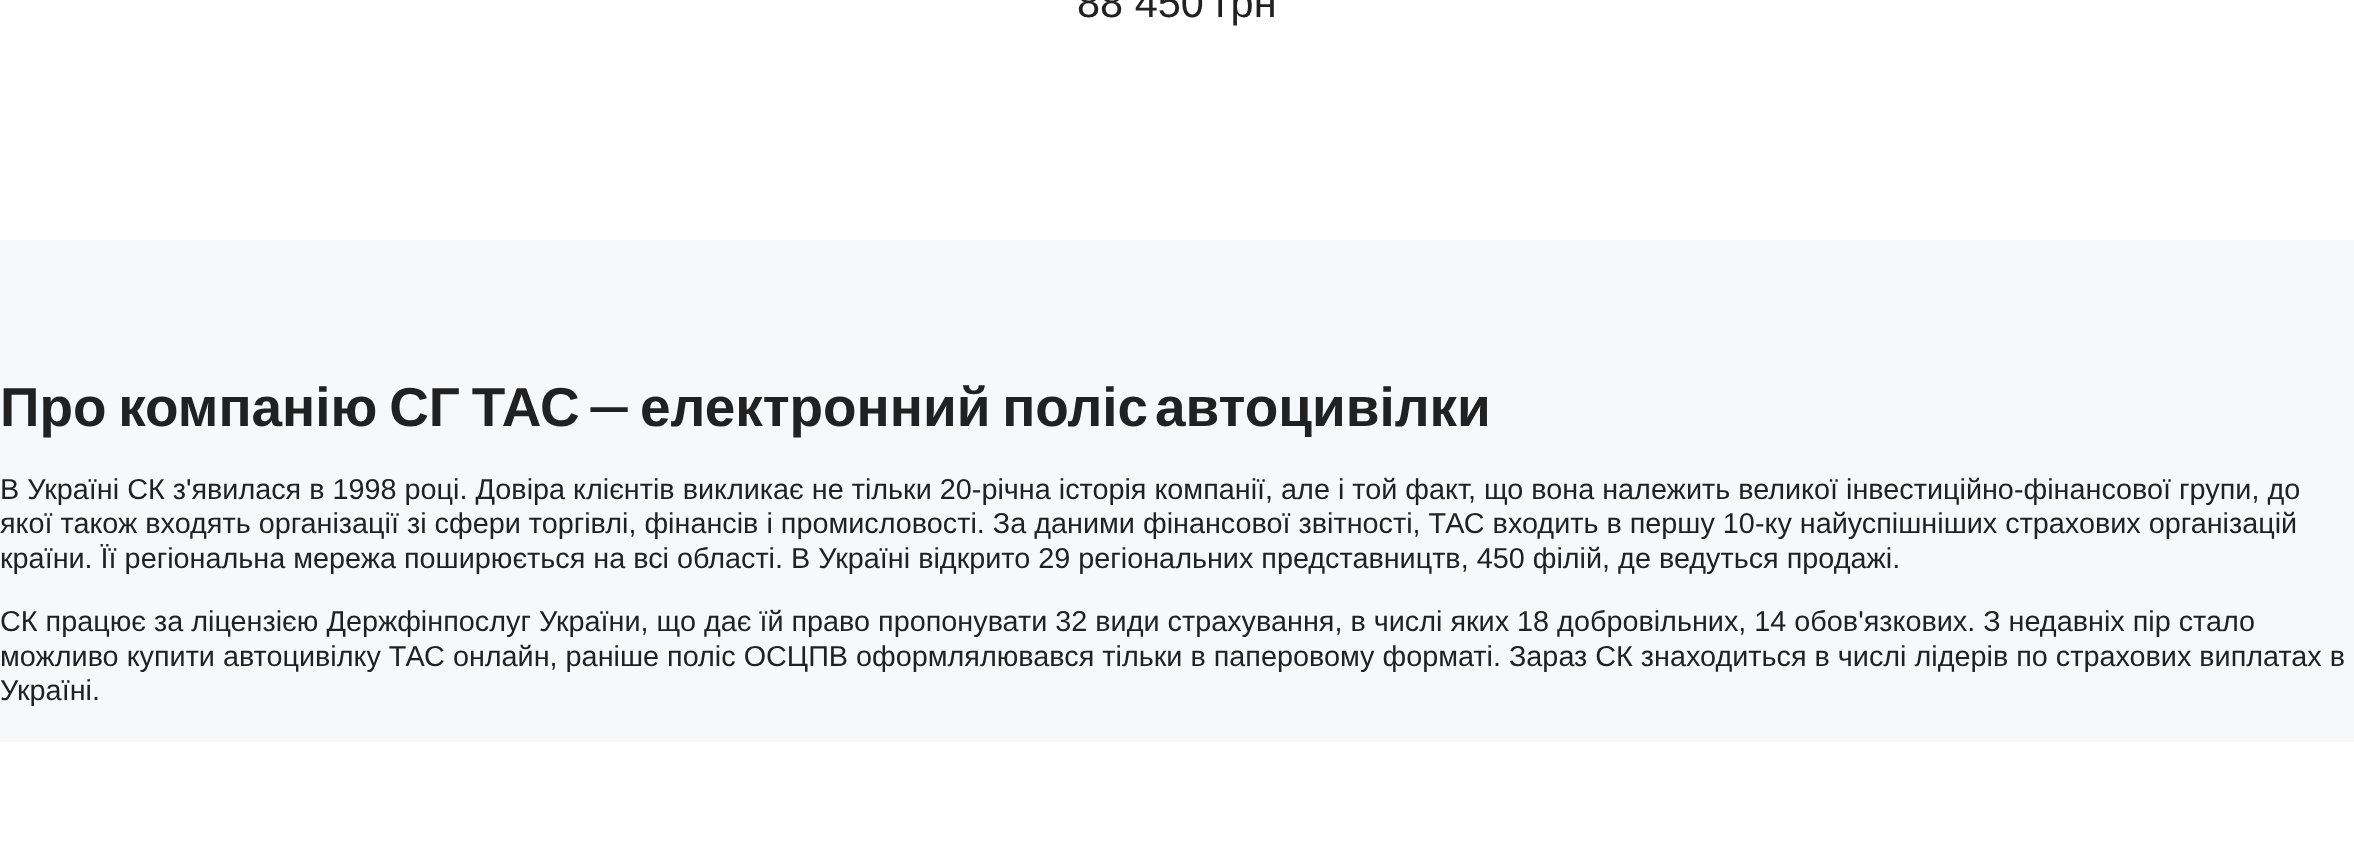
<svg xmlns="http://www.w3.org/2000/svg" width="2354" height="866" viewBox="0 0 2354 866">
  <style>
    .t1 { font: 41.5px Liberation Sans; fill: #212121; }
    .t2 { font: bold 54.9px Liberation Sans; fill: #212121; }
    .t3 { font: bold 54.9px Lato; fill: #212121; }
    .t4 { font: 28.8px Liberation Sans; fill: #212121; }
  </style>
  <rect width="100%" height="100%" fill="#fff"/>
  <rect x="0" y="240" width="2354" height="502" fill="#f7f8f9"/>
  <text x="1077" y="17" class="t1">88 450 грн</text>
  <text x="0" y="426" word-spacing="-3.5" class="t2">Про компанію СГ ТАС</text>
  <text x="586" y="426" class="t3">—</text>
  <text x="640" y="426" word-spacing="-3.5" class="t2">електронний поліс</text>
  <text x="1155" y="426" class="t2">автоцивілки</text>
  <text x="0" y="499" class="t4">В Україні СК з'явилася в 1998 році. Довіра клієнтів викликає не тільки 20-річна історія компанії, але і той факт, що вона належить великої інвестиційно-фінансової групи, до</text>
  <text x="0" y="533" class="t4">якої також входять організації зі сфери торгівлі, фінансів і промисловості. За даними фінансової звітності, ТАС входить в першу 10-ку найуспішніших страхових організацій</text>
  <text x="0" y="568" class="t4">країни. Її регіональна мережа поширюється на всі області. В Україні відкрито 29 регіональних представництв, 450 філій, де ведуться продажі.</text>
  <text x="0" y="631" class="t4">СК працює за ліцензією Держфінпослуг України, що дає їй право пропонувати 32 види страхування, в числі яких 18 добровільних, 14 обов'язкових. З недавніх пір стало</text>
  <text x="0" y="666" class="t4">можливо купити автоцивілку ТАС онлайн, раніше поліс ОСЦПВ оформлялювався тільки в паперовому форматі. Зараз СК знаходиться в числі лідерів по страхових виплатах в</text>
  <text x="0" y="700" class="t4">Україні.</text>
</svg>
